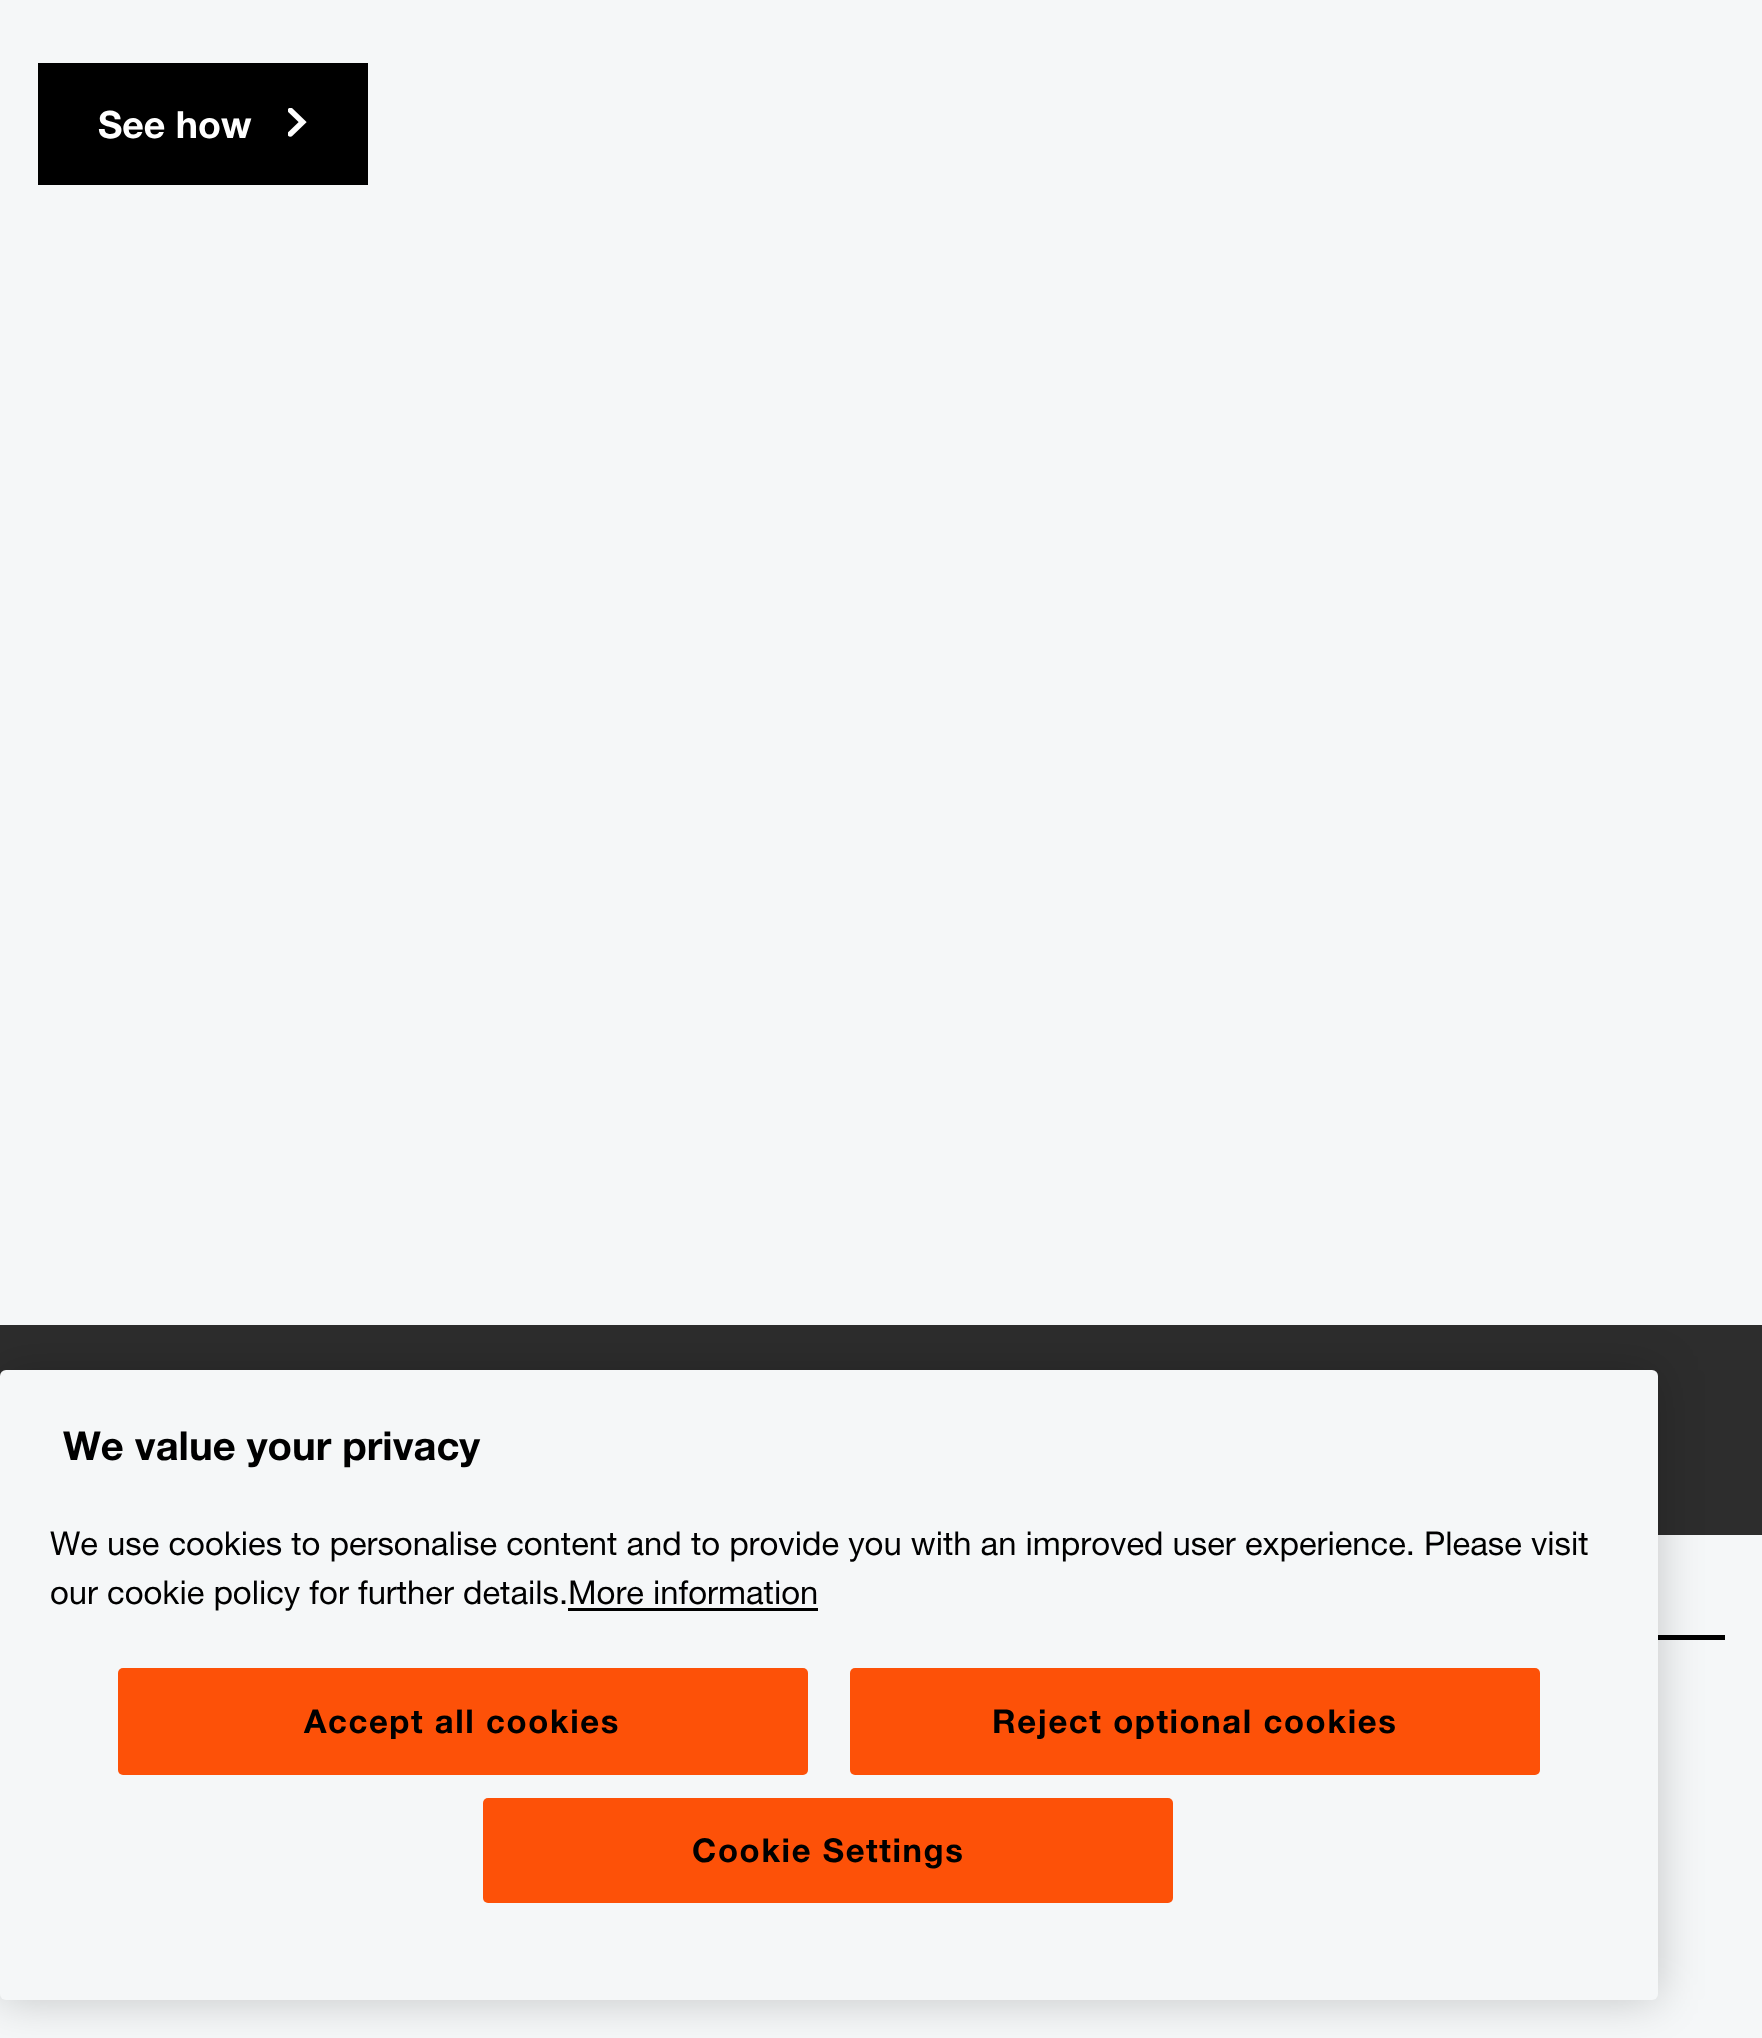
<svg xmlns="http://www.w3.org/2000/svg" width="1762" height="2038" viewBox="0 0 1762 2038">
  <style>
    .t1 { font: bold 37.5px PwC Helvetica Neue; fill: #fff; }
    .t2 { font: bold 40px PwC Helvetica Neue; fill: #000; }
    .t3 { font: 32.8px PwC Helvetica Neue; fill: #000; }
    .t4 { font: bold 32.8px PwC Helvetica Neue; letter-spacing: 1.6px; fill: #000; }
  </style>
  <rect width="100%" height="100%" fill="#f5f7f8"/>
  <rect x="38" y="63" width="330" height="122" fill="#000"/>
  <text x="98" y="138" class="t1">See how</text>
  <image x="288" y="108" width="19" height="29" href="images/1.png"/>
  <rect x="0" y="1325" width="1762" height="210" fill="#2d2d2d"/>
  <rect x="1658" y="1635" width="67" height="5" fill="#000"/>
  <rect x="0" y="1370" width="1658" height="630" rx="6" fill="#00000033" filter="blur(22.5px)"/>
  <rect x="0" y="1370" width="1658" height="630" rx="6" fill="#f5f7f8"/>
  <text x="63" y="1460" class="t2">We value your privacy</text>
  <text x="50" y="1555" class="t3">We use cookies to personalise content and to provide you with an improved user experience. Please visit</text>
  <text x="50" y="1604" class="t3">our cookie policy for further details.</text>
  <text x="568" y="1604" class="t3">More information</text>
  <rect x="568" y="1608" width="250" height="3" fill="#000"/>
  <rect x="118" y="1668" width="690" height="107" rx="5" fill="#fd5108"/>
  <text x="304" y="1733" class="t4">Accept all cookies</text>
  <rect x="850" y="1668" width="690" height="107" rx="5" fill="#fd5108"/>
  <text x="992" y="1733" class="t4">Reject optional cookies</text>
  <rect x="483" y="1798" width="690" height="105" rx="5" fill="#fd5108"/>
  <text x="692" y="1862" class="t4">Cookie Settings</text>
</svg>
